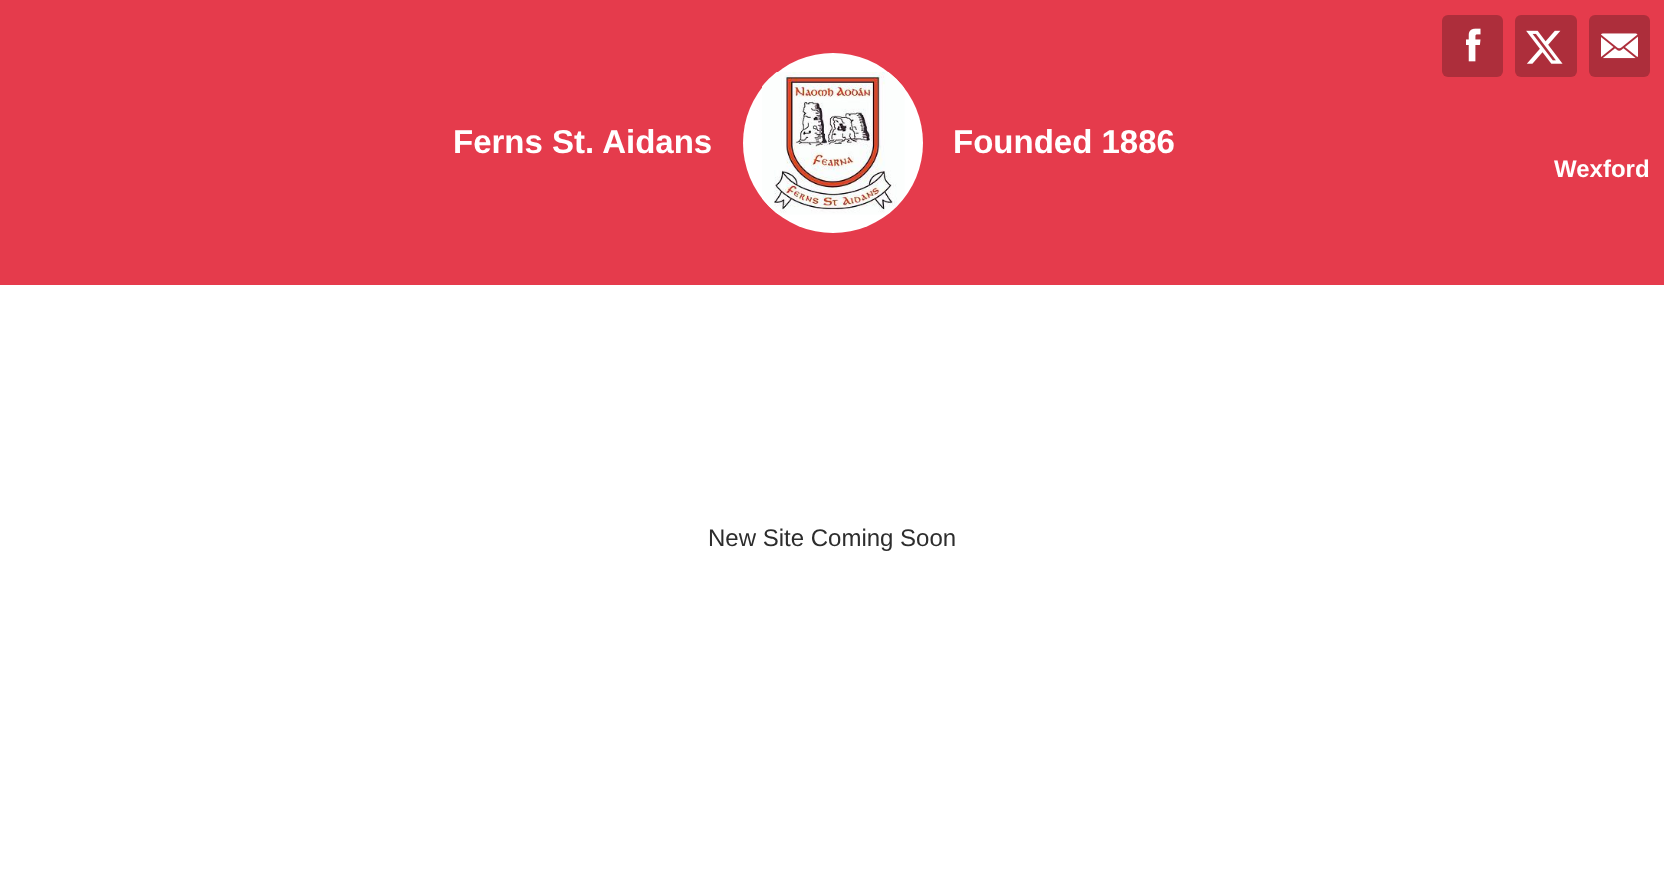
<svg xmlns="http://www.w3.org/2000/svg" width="1664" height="870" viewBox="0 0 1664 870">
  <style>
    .t1 { font: bold 33px Liberation Sans; fill: #fff; }
    .t2 { font: bold 24px Liberation Sans; fill: #fff; }
    .t3 { font: 24px Liberation Sans; fill: #2d2d2d; }
  </style>
  <rect width="100%" height="100%" fill="#fff"/>
  <rect x="0" y="0" width="1664" height="285" fill="#e53b4c"/>
  <text x="453" y="153" class="t1">Ferns St. Aidans</text>
  <circle cx="833" cy="143" r="90" fill="#fff"/>
  <image x="762" y="72" width="143" height="143" href="images/1.png"/>
  <text x="953" y="153" class="t1">Founded 1886</text>
  <rect x="1442" y="15" width="61" height="62" rx="6" fill="#ad2e3b"/>
  <image x="1466" y="28" width="15" height="34" href="images/2.png"/>
  <rect x="1515" y="15" width="62" height="62" rx="6" fill="#ad2e3b"/>
  <image x="1526" y="30" width="37" height="34" href="images/3.png"/>
  <rect x="1589" y="15" width="61" height="62" rx="6" fill="#ad2e3b"/>
  <image x="1601" y="33" width="37" height="26" href="images/4.png"/>
  <text x="1554" y="177" class="t2">Wexford</text>
  <text x="708" y="546" class="t3">New Site Coming Soon</text>
</svg>
